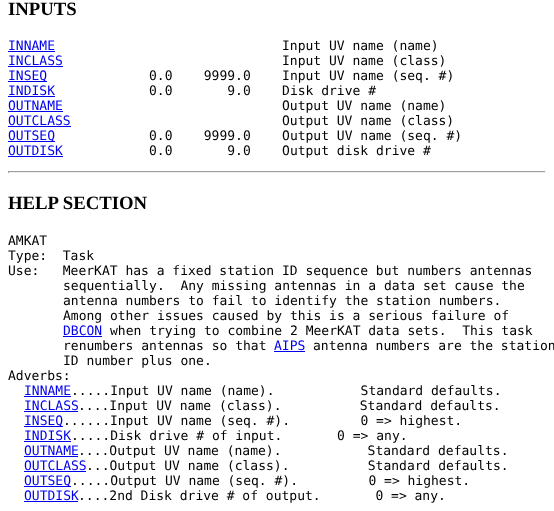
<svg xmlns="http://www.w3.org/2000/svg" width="554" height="511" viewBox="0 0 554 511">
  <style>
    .t1 { font: bold 18.75px Liberation Serif; fill: #000; }
    .t2 { font: 13px DejaVu Sans Mono; fill: #00e; }
    .t3 { font: 13px DejaVu Sans Mono; fill: #000; }
  </style>
  <rect width="100%" height="100%" fill="#fff"/>
  <text x="8" y="15" class="t1">INPUTS</text>
  <text x="8" y="50" class="t2">INNAME</text>
  <rect x="8" y="51" width="47" height="1" fill="#00e"/>
  <text x="282" y="50" class="t3">Input UV name (name)</text>
  <text x="8" y="65" class="t2">INCLASS</text>
  <rect x="8" y="66" width="55" height="1" fill="#00e"/>
  <text x="282" y="65" class="t3">Input UV name (class)</text>
  <rect x="8" y="81" width="39" height="1" fill="#00e"/>
  <text x="8" y="80" class="t2">INSEQ</text>
  <text x="149" y="80" class="t3" xml:space="preserve">0.0    9999.0    Input UV name (seq. #)</text>
  <text x="8" y="95" class="t2">INDISK</text>
  <rect x="8" y="96" width="47" height="1" fill="#00e"/>
  <text x="149" y="95" class="t3" xml:space="preserve">0.0       9.0    Disk drive #</text>
  <text x="8" y="110" class="t2">OUTNAME</text>
  <rect x="8" y="111" width="55" height="1" fill="#00e"/>
  <text x="282" y="110" class="t3">Output UV name (name)</text>
  <text x="8" y="125" class="t2">OUTCLASS</text>
  <rect x="8" y="126" width="63" height="1" fill="#00e"/>
  <text x="282" y="125" class="t3">Output UV name (class)</text>
  <rect x="8" y="141" width="47" height="1" fill="#00e"/>
  <text x="8" y="140" class="t2">OUTSEQ</text>
  <text x="149" y="140" class="t3" xml:space="preserve">0.0    9999.0    Output UV name (seq. #)</text>
  <text x="8" y="155" class="t2">OUTDISK</text>
  <rect x="8" y="156" width="55" height="1" fill="#00e"/>
  <text x="149" y="155" class="t3" xml:space="preserve">0.0       9.0    Output disk drive #</text>
  <rect x="8" y="171" width="538" height="1" fill="#9f9f9f"/>
  <rect x="545" y="171" width="1" height="2" fill="#eee"/>
  <rect x="8" y="172" width="538" height="1" fill="#eee"/>
  <rect x="8" y="171" width="1" height="2" fill="#9f9f9f"/>
  <text x="8" y="209" class="t1">HELP SECTION</text>
  <text x="8" y="245" class="t3">AMKAT</text>
  <text x="8" y="260" class="t3" xml:space="preserve">Type:  Task</text>
  <text x="8" y="275" class="t3" xml:space="preserve">Use:   MeerKAT has a fixed station ID sequence but numbers antennas</text>
  <text x="63" y="290" class="t3" xml:space="preserve">sequentially.  Any missing antennas in a data set cause the</text>
  <text x="63" y="305" class="t3">antenna numbers to fail to identify the station numbers.</text>
  <text x="63" y="320" class="t3">Among other issues caused by this is a serious failure of</text>
  <text x="63" y="335" class="t2">DBCON</text>
  <rect x="63" y="336" width="39" height="1" fill="#00e"/>
  <text x="110" y="335" class="t3" xml:space="preserve">when trying to combine 2 MeerKAT data sets.  This task</text>
  <text x="63" y="350" class="t3">renumbers antennas so that</text>
  <text x="274" y="350" class="t2">AIPS</text>
  <rect x="274" y="351" width="31" height="1" fill="#00e"/>
  <text x="313" y="350" class="t3">antenna numbers are the station</text>
  <text x="63" y="365" class="t3">ID number plus one.</text>
  <text x="8" y="380" class="t3">Adverbs:</text>
  <text x="24" y="395" class="t2">INNAME</text>
  <rect x="24" y="396" width="47" height="1" fill="#00e"/>
  <text x="71" y="395" class="t3" xml:space="preserve">.....Input UV name (name).           Standard defaults.</text>
  <text x="24" y="410" class="t2">INCLASS</text>
  <rect x="24" y="411" width="54" height="1" fill="#00e"/>
  <text x="78" y="410" class="t3" xml:space="preserve">....Input UV name (class).          Standard defaults.</text>
  <rect x="24" y="426" width="39" height="1" fill="#00e"/>
  <text x="24" y="425" class="t2">INSEQ</text>
  <text x="63" y="425" class="t3" xml:space="preserve">......Input UV name (seq. #).         0 =&gt; highest.</text>
  <text x="24" y="440" class="t2">INDISK</text>
  <rect x="24" y="441" width="47" height="1" fill="#00e"/>
  <text x="71" y="440" class="t3" xml:space="preserve">.....Disk drive # of input.       0 =&gt; any.</text>
  <text x="24" y="455" class="t2">OUTNAME</text>
  <rect x="24" y="456" width="54" height="1" fill="#00e"/>
  <text x="78" y="455" class="t3" xml:space="preserve">....Output UV name (name).           Standard defaults.</text>
  <text x="24" y="470" class="t2">OUTCLASS</text>
  <rect x="24" y="471" width="62" height="1" fill="#00e"/>
  <text x="86" y="470" class="t3" xml:space="preserve">...Output UV name (class).          Standard defaults.</text>
  <rect x="24" y="486" width="47" height="1" fill="#00e"/>
  <text x="24" y="485" class="t2">OUTSEQ</text>
  <text x="71" y="485" class="t3" xml:space="preserve">.....Output UV name (seq. #).         0 =&gt; highest.</text>
  <text x="24" y="500" class="t2">OUTDISK</text>
  <rect x="24" y="501" width="54" height="1" fill="#00e"/>
  <text x="78" y="500" class="t3" xml:space="preserve">....2nd Disk drive # of output.       0 =&gt; any.</text>
</svg>
